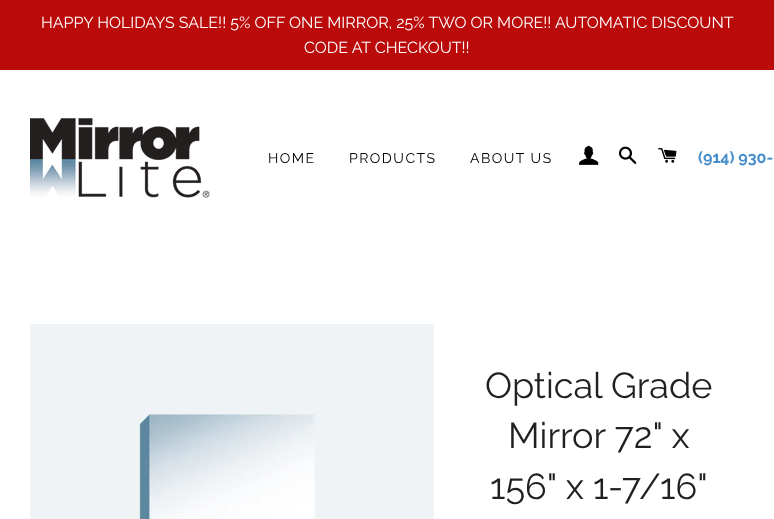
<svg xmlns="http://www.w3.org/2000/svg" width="774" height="519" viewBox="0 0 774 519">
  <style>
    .t1 { font: 16px Raleway; fill: #fff; }
    .t2 { font: 14px Raleway; letter-spacing: 1.5px; fill: #000; }
    .t3 { font: bold 16px Raleway; fill: #448ccb; }
    .t4 { font: 36px Raleway; fill: #1f2021; }
  </style>
  <rect width="100%" height="100%" fill="#fff"/>
  <rect x="0" y="0" width="774" height="70" fill="#bb0a0a"/>
  <text x="41" y="28" class="t1">HAPPY HOLIDAYS SALE!! 5% OFF ONE MIRROR, 25% TWO OR MORE!! AUTOMATIC DISCOUNT</text>
  <text x="304" y="53" class="t1">CODE AT CHECKOUT!!</text>
  <image x="30" y="118" width="180" height="80" href="images/1.png"/>
  <text x="268" y="163" class="t2">HOME</text>
  <text x="349" y="163" class="t2">PRODUCTS</text>
  <text x="470" y="163" class="t2">ABOUT US</text>
  <image x="579" y="145" width="20" height="20" href="images/2.png"/>
  <image x="619" y="146" width="18" height="18" href="images/3.png"/>
  <image x="658" y="148" width="19" height="15" href="images/4.png"/>
  <text x="698" y="163" class="t3">(914) 930-</text>
  <image x="30" y="324" width="404" height="195" href="images/5.png"/>
  <text x="485" y="398" class="t4">Optical Grade</text>
  <text x="508" y="448" class="t4">Mirror 72" x</text>
  <text x="490" y="499" class="t4">156" x 1-7/16"</text>
</svg>
